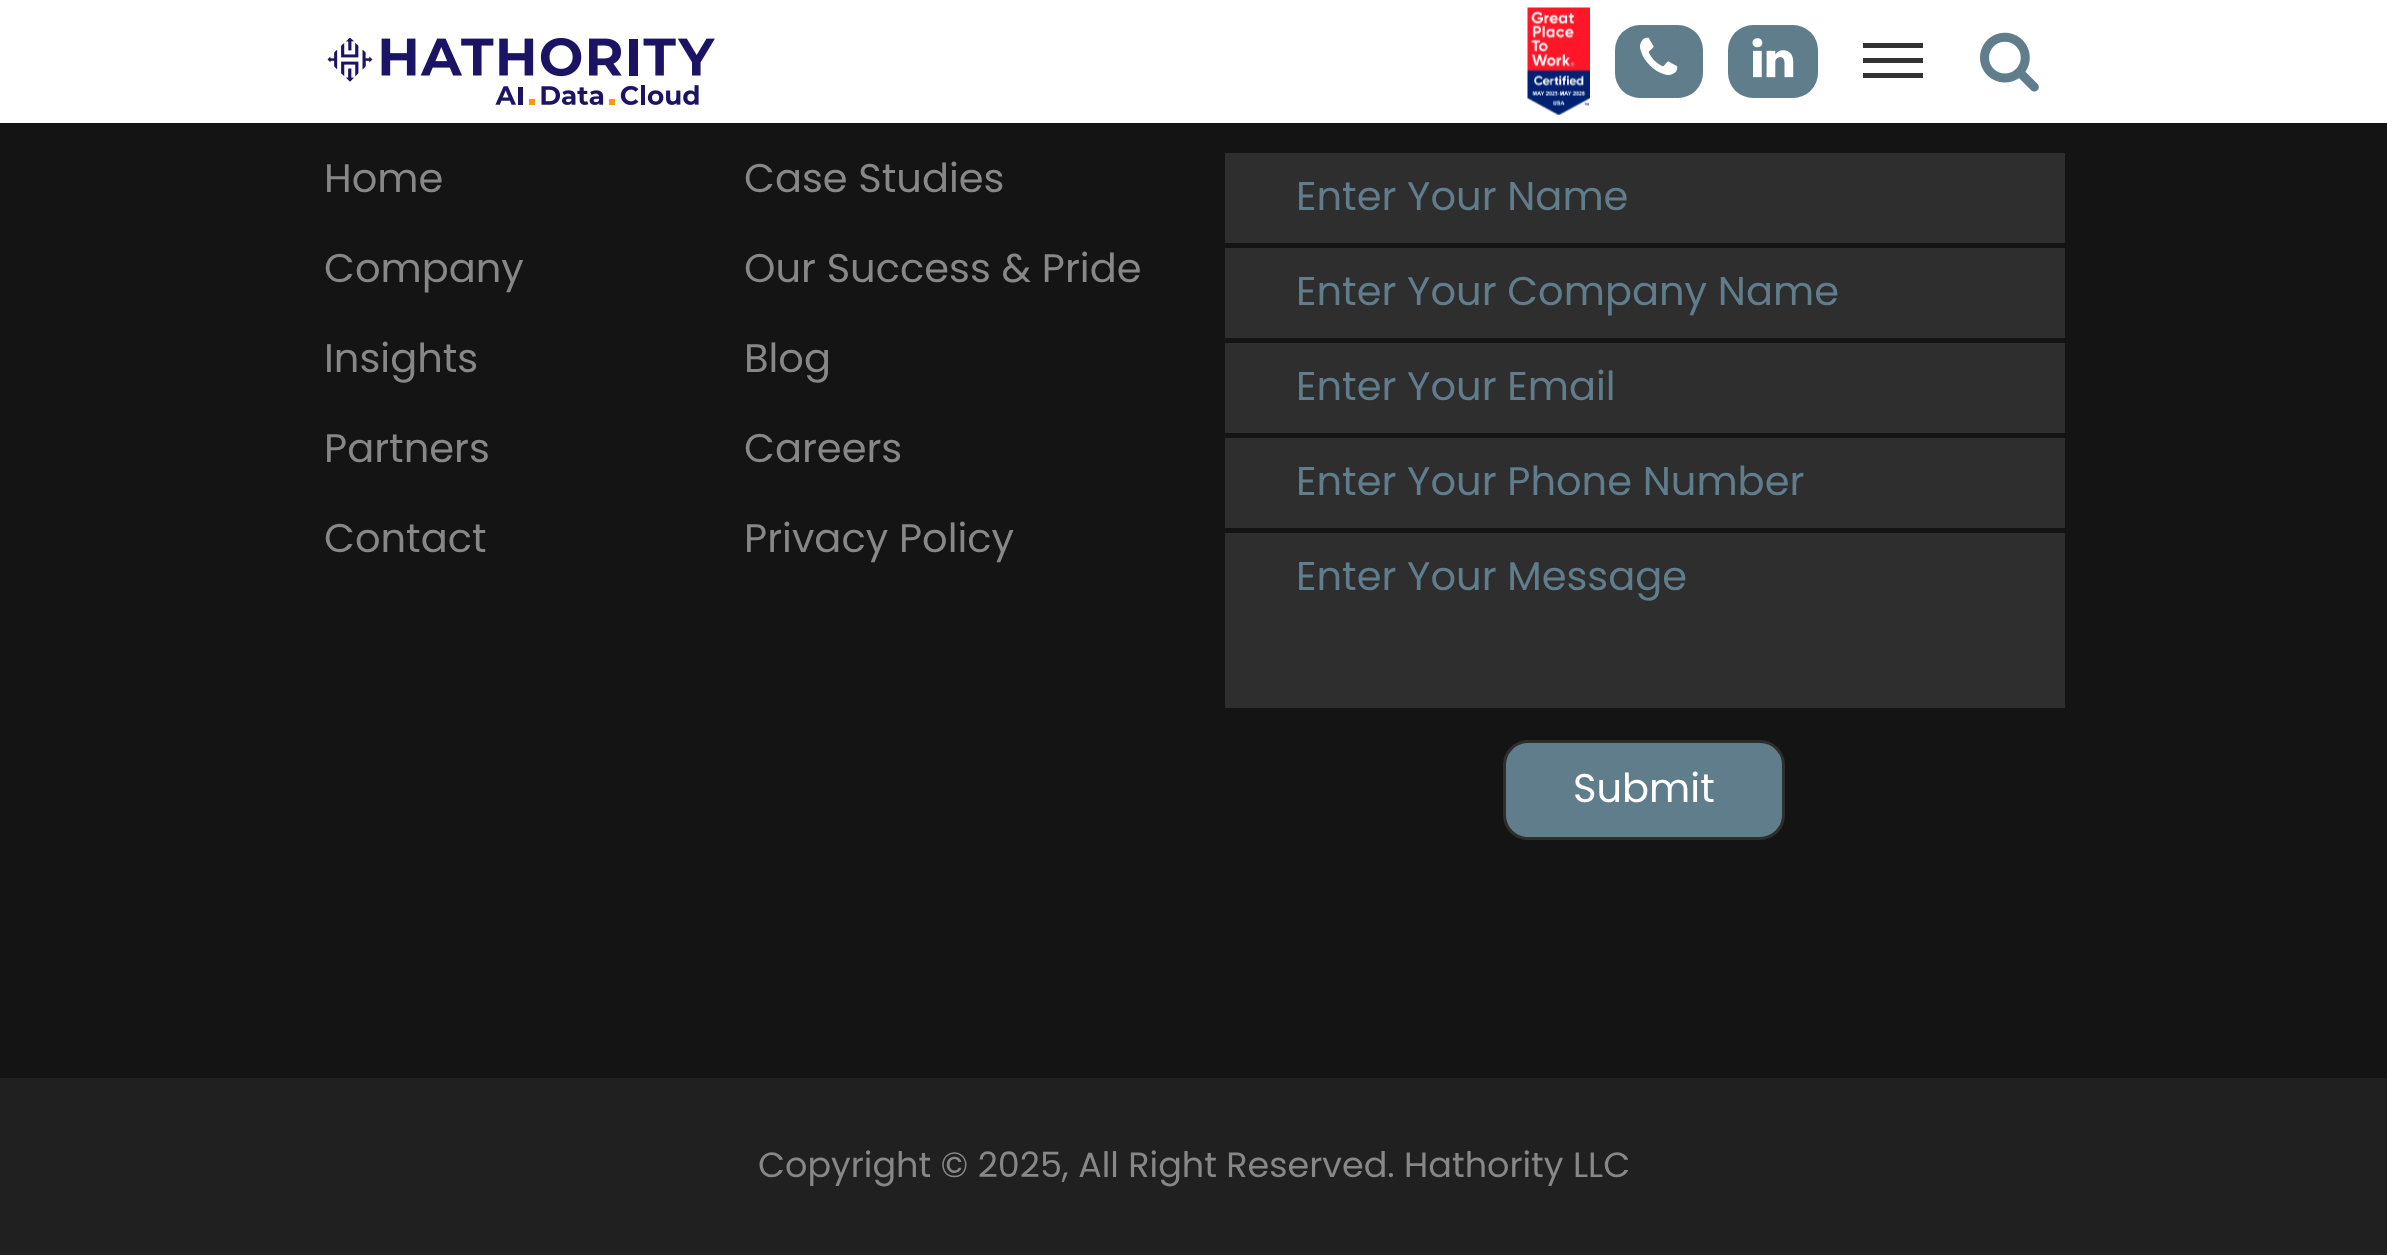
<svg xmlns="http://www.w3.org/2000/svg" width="2387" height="1255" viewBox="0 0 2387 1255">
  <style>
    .t1 { font: 40px Poppins; fill: #878787; }
    .t2 { font: 40px Poppins; fill: #607d8b; }
    .t3 { font: 40px Poppins; fill: #fff; }
    .t4 { font: 35px Poppins; fill: #878787; }
  </style>
  <rect width="100%" height="100%" fill="#151414"/>
  <rect x="0" y="0" width="2387" height="123" fill="#fff"/>
  <image x="327" y="38" width="388" height="67" href="images/1.png"/>
  <image x="1527" y="7" width="63" height="108" href="images/2.png"/>
  <rect x="1615" y="25" width="88" height="73" rx="25" fill="#607d8b"/>
  <image x="1640" y="37" width="38" height="38" href="images/3.png"/>
  <rect x="1728" y="25" width="90" height="73" rx="25" fill="#607d8b"/>
  <image x="1752" y="38" width="42" height="40" href="images/4.png"/>
  <rect x="1863" y="58" width="60" height="5" fill="#333"/>
  <rect x="1863" y="43" width="60" height="5" fill="#333"/>
  <rect x="1863" y="73" width="60" height="5" fill="#333"/>
  <image x="1980" y="32" width="59" height="60" href="images/5.png"/>
  <text x="324" y="192" class="t1">Home</text>
  <text x="744" y="192" class="t1">Case Studies</text>
  <text x="324" y="282" class="t1">Company</text>
  <text x="744" y="282" class="t1">Our Success &amp; Pride</text>
  <text x="324" y="372" class="t1">Insights</text>
  <text x="744" y="372" class="t1">Blog</text>
  <text x="324" y="462" class="t1">Partners</text>
  <text x="744" y="462" class="t1">Careers</text>
  <text x="324" y="552" class="t1">Contact</text>
  <text x="744" y="552" class="t1">Privacy Policy</text>
  <rect x="1225" y="153" width="840" height="90" fill="#2e2e2e"/>
  <text x="1296" y="210" class="t2">Enter Your Name</text>
  <rect x="1225" y="248" width="840" height="90" fill="#2e2e2e"/>
  <text x="1296" y="305" class="t2">Enter Your Company Name</text>
  <rect x="1225" y="343" width="840" height="90" fill="#2e2e2e"/>
  <text x="1296" y="400" class="t2">Enter Your Email</text>
  <rect x="1225" y="438" width="840" height="90" fill="#2e2e2e"/>
  <text x="1296" y="495" class="t2">Enter Your Phone Number</text>
  <rect x="1225" y="533" width="840" height="175" fill="#2e2e2e"/>
  <text x="1296" y="590" class="t2">Enter Your Message</text>
  <rect x="1504.5" y="741.5" width="279" height="97" rx="23.5" fill="#607d8b" stroke="#2e2e2e" stroke-width="3"/>
  <text x="1573" y="802" class="t3">Submit</text>
  <rect x="0" y="1078" width="2387" height="177" fill="#202020"/>
  <text x="758" y="1177" class="t4">Copyright © 2025, All Right Reserved. Hathority LLC</text>
</svg>
